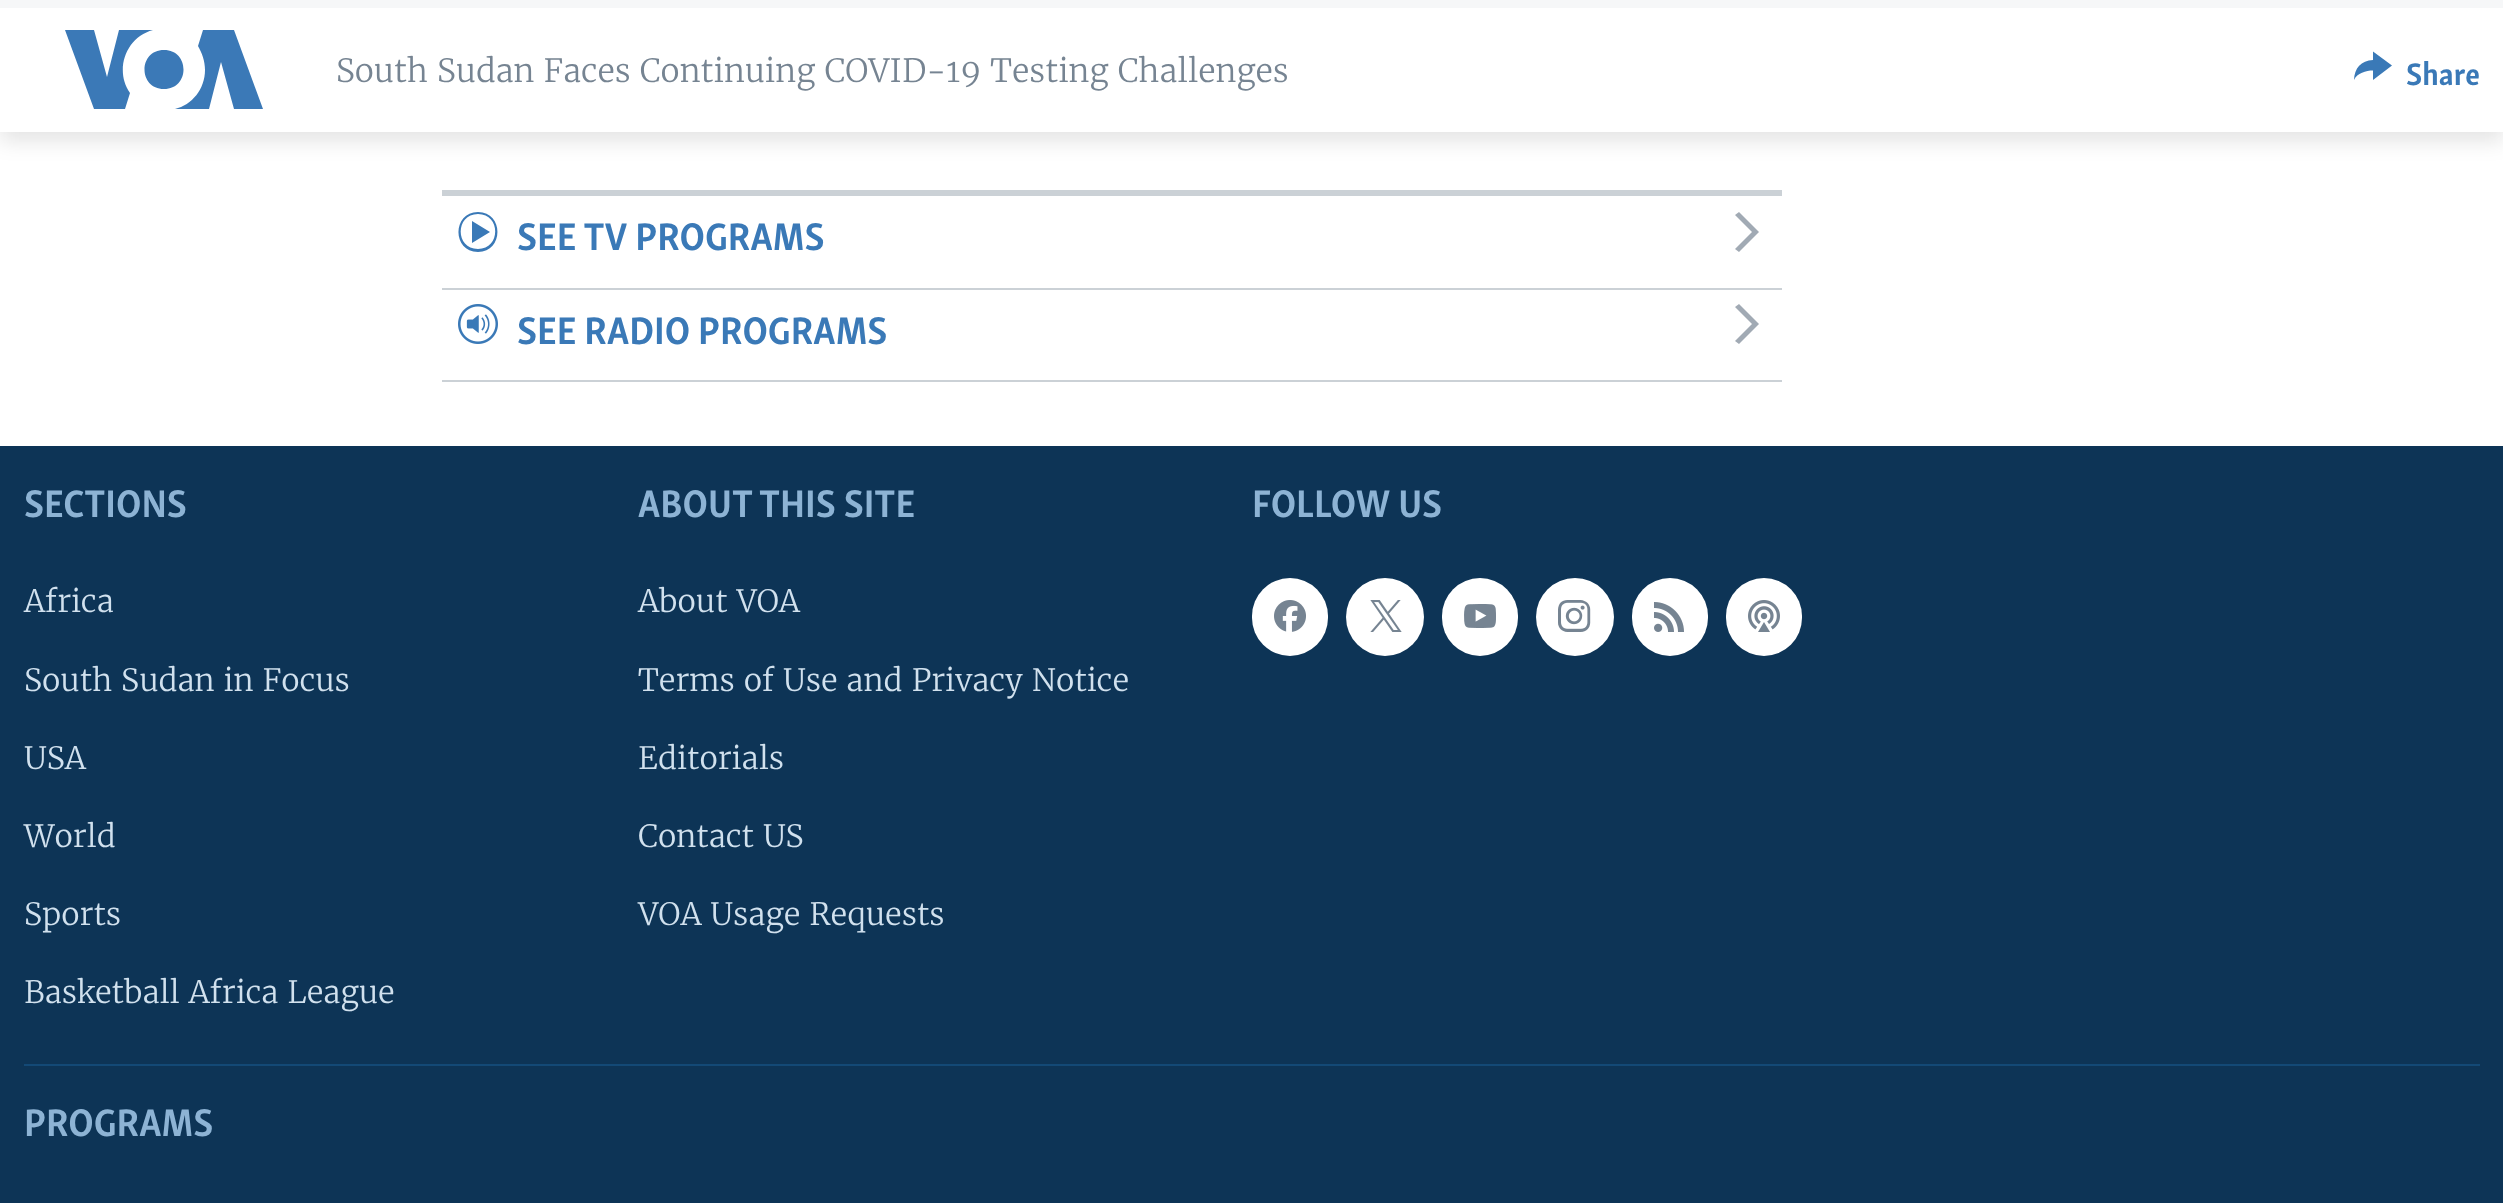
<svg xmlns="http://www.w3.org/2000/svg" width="2503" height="1203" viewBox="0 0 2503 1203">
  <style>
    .t1 { font: 300 32px Merriweather; fill: #768492; }
    .t2 { font: bold 32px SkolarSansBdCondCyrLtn; fill: #3a79b7; }
    .t3 { font: bold 39.5px SkolarSansBdCondCyrLtn; fill: #3a79b7; }
    .t4 { font: bold 39.5px SkolarSansBdCondCyrLtn; fill: #8db3d4; }
    .t5 { font: 300 30.75px Merriweather; fill: #d1e1ee; }
  </style>
  <rect width="100%" height="100%" fill="#fff"/>
  <rect x="0" y="10" width="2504" height="132" fill="#0000001a" filter="blur(10px)"/>
  <rect x="0" y="8" width="2503" height="124" fill="#fff"/>
  <rect x="0" y="0" width="2503" height="8" fill="#f6f7f8"/>
  <path d="M130 93L125 109H94L65 30H94L107 77L119 30H153C126 37 114 70 130 93ZM164 50C138 50 138 89 164 89C190 89 190 50 164 50ZM205 70C205 89 192 105 175 109H209L221 62L234 109H263L234 30H203L198 46C202 53 205 61 205 70Z" fill="#3b79b7"/>
  <text x="336" y="82" class="t1">South Sudan Faces Continuing COVID-19 Testing Challenges</text>
  <path d="M2354 80C2354.5 68 2361 60.5 2373 60V51.5L2392 65.5L2373 80V70.5C2366 70.5 2357 73 2354 80Z" fill="#3a79b7"/>
  <text x="2406" y="85" class="t2">Share</text>
  <rect x="442" y="190" width="1340" height="6" fill="#cbd1d6"/>
  <rect x="442" y="288" width="1340" height="2" fill="#cbd1d6"/>
  <path d="M472 243L490 232L472 221ZM478 214C501 214 501 249 478 249C455 249 455 214 478 214ZM478 212C452 212 452 252 478 252C504 252 504 212 478 212Z" fill="#3a79b7"/>
  <text x="517" y="250" class="t3">SEE TV PROGRAMS</text>
  <path d="M1739 252L1759 232L1739 212L1735 215L1752 232L1735 249Z" fill="#a1aab4"/>
  <rect x="442" y="380" width="1340" height="2" fill="#cbd1d6"/>
  <image x="458" y="304" width="40" height="40" href="images/1.png"/>
  <text x="517" y="344" class="t3">SEE RADIO PROGRAMS</text>
  <path d="M1739 344L1759 324L1739 304L1735 307L1752 324L1735 341Z" fill="#a1aab4"/>
  <rect x="0" y="446" width="2503" height="757" fill="#0d3456"/>
  <text x="24" y="517" class="t4">SECTIONS</text>
  <text x="24" y="612" class="t5">Africa</text>
  <text x="24" y="691" class="t5">South Sudan in Focus</text>
  <text x="24" y="769" class="t5">USA</text>
  <text x="24" y="847" class="t5">World</text>
  <text x="24" y="925" class="t5">Sports</text>
  <text x="24" y="1003" class="t5">Basketball Africa League</text>
  <text x="638" y="517" class="t4">ABOUT THIS SITE</text>
  <text x="638" y="612" class="t5">About VOA</text>
  <text x="638" y="691" class="t5">Terms of Use and Privacy Notice</text>
  <text x="638" y="769" class="t5">Editorials</text>
  <text x="638" y="847" class="t5">Contact US</text>
  <text x="638" y="925" class="t5">VOA Usage Requests</text>
  <text x="1252" y="517" class="t4">FOLLOW US</text>
  <rect x="1252" y="578" width="76" height="78" rx="38" fill="#fff"/>
  <image x="1274" y="600" width="32" height="32" href="images/2.png"/>
  <circle cx="1385" cy="617" r="39" fill="#fff"/>
  <image x="1370" y="600" width="32" height="32" href="images/3.png"/>
  <rect x="1442" y="578" width="76" height="78" rx="38" fill="#fff"/>
  <image x="1464" y="604" width="32" height="24" href="images/4.png"/>
  <circle cx="1575" cy="617" r="39" fill="#fff"/>
  <image x="1558" y="600" width="33" height="32" href="images/5.png"/>
  <rect x="1632" y="578" width="76" height="78" rx="38" fill="#fff"/>
  <image x="1654" y="602" width="30" height="30" href="images/6.png"/>
  <rect x="1726" y="578" width="76" height="78" rx="38" fill="#fff"/>
  <image x="1748" y="600" width="32" height="32" href="images/7.png"/>
  <rect x="24" y="1064" width="2456" height="2" fill="#134976"/>
  <text x="24" y="1136" class="t4">PROGRAMS</text>
</svg>
